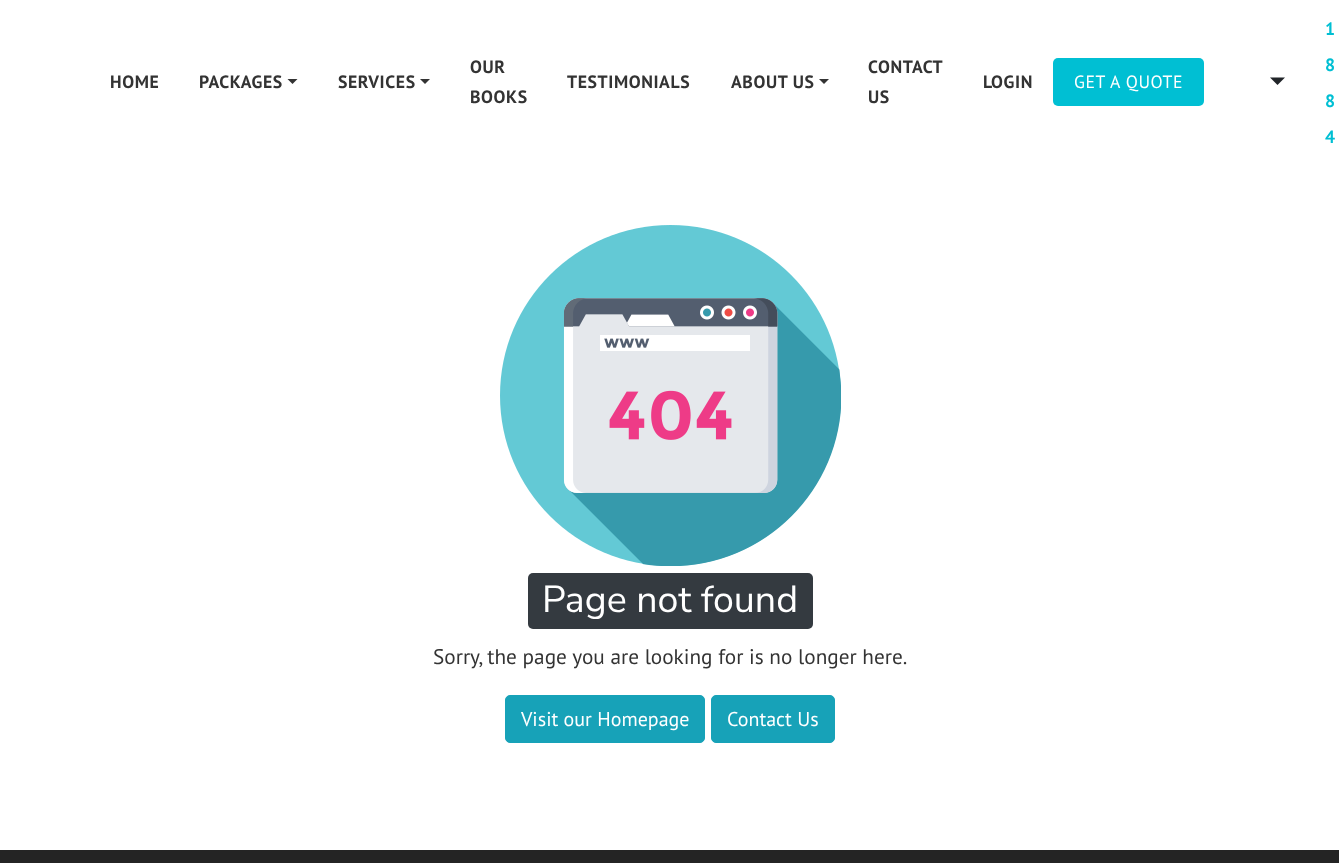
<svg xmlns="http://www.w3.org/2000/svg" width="1339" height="863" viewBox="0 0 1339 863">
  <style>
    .t1 { font: bold 17.75px PT Sans; letter-spacing: 0.6px; fill: #333; }
    .t2 { font: 17.75px PT Sans; letter-spacing: 0.6px; fill: #fff; }
    .t3 { font: bold 17.75px PT Sans; letter-spacing: 0.6px; fill: #00bfd3; }
    .t4 { font: 37.5px Nunito Sans; fill: #fff; }
    .t5 { font: 21.25px PT Sans; fill: #333; }
    .t6 { font: 20px PT Sans; fill: #fff; }
  </style>
  <rect width="100%" height="100%" fill="#fff"/>
  <text x="110" y="88" class="t1">HOME</text>
  <text x="199" y="88" class="t1">PACKAGES</text>
  <path d="M287.5 79H297.5L292.5 84Z" fill="#333"/>
  <text x="338" y="88" class="t1">SERVICES</text>
  <path d="M420 79H430L425 84Z" fill="#333"/>
  <text x="470" y="73" class="t1">OUR</text>
  <text x="470" y="103" class="t1">BOOKS</text>
  <text x="567" y="88" class="t1">TESTIMONIALS</text>
  <text x="731" y="88" class="t1">ABOUT US</text>
  <path d="M819 79H829L824 84Z" fill="#333"/>
  <text x="868" y="73" class="t1">CONTACT</text>
  <text x="868" y="103" class="t1">US</text>
  <text x="983" y="88" class="t1">LOGIN</text>
  <rect x="1053" y="58" width="151" height="48" rx="5" fill="#00bfd3"/>
  <text x="1074" y="88" class="t2">GET A QUOTE</text>
  <path d="M1270 77.5H1285L1277.5 85Z" fill="#212529"/>
  <text x="1325" y="35" class="t3">1</text>
  <text x="1325" y="71" class="t3">8</text>
  <text x="1325" y="107" class="t3">8</text>
  <text x="1325" y="143" class="t3">4</text>
  <image x="500" y="225" width="341" height="341" href="images/1.png"/>
  <rect x="528" y="573" width="285" height="56" rx="5" fill="#343a40"/>
  <text x="542" y="612" class="t4">Page not found</text>
  <text x="433" y="664" class="t5">Sorry, the page you are looking for is no longer here.</text>
  <rect x="505.5" y="695.5" width="199" height="47" rx="4.5" fill="#17a2b8" stroke="#17a2b8"/>
  <text x="521" y="726" class="t6">Visit our Homepage</text>
  <rect x="711.5" y="695.5" width="123" height="47" rx="4.5" fill="#17a2b8" stroke="#17a2b8"/>
  <text x="727" y="726" class="t6">Contact Us</text>
  <rect x="0" y="850" width="1339" height="13" fill="#242424"/>
</svg>
